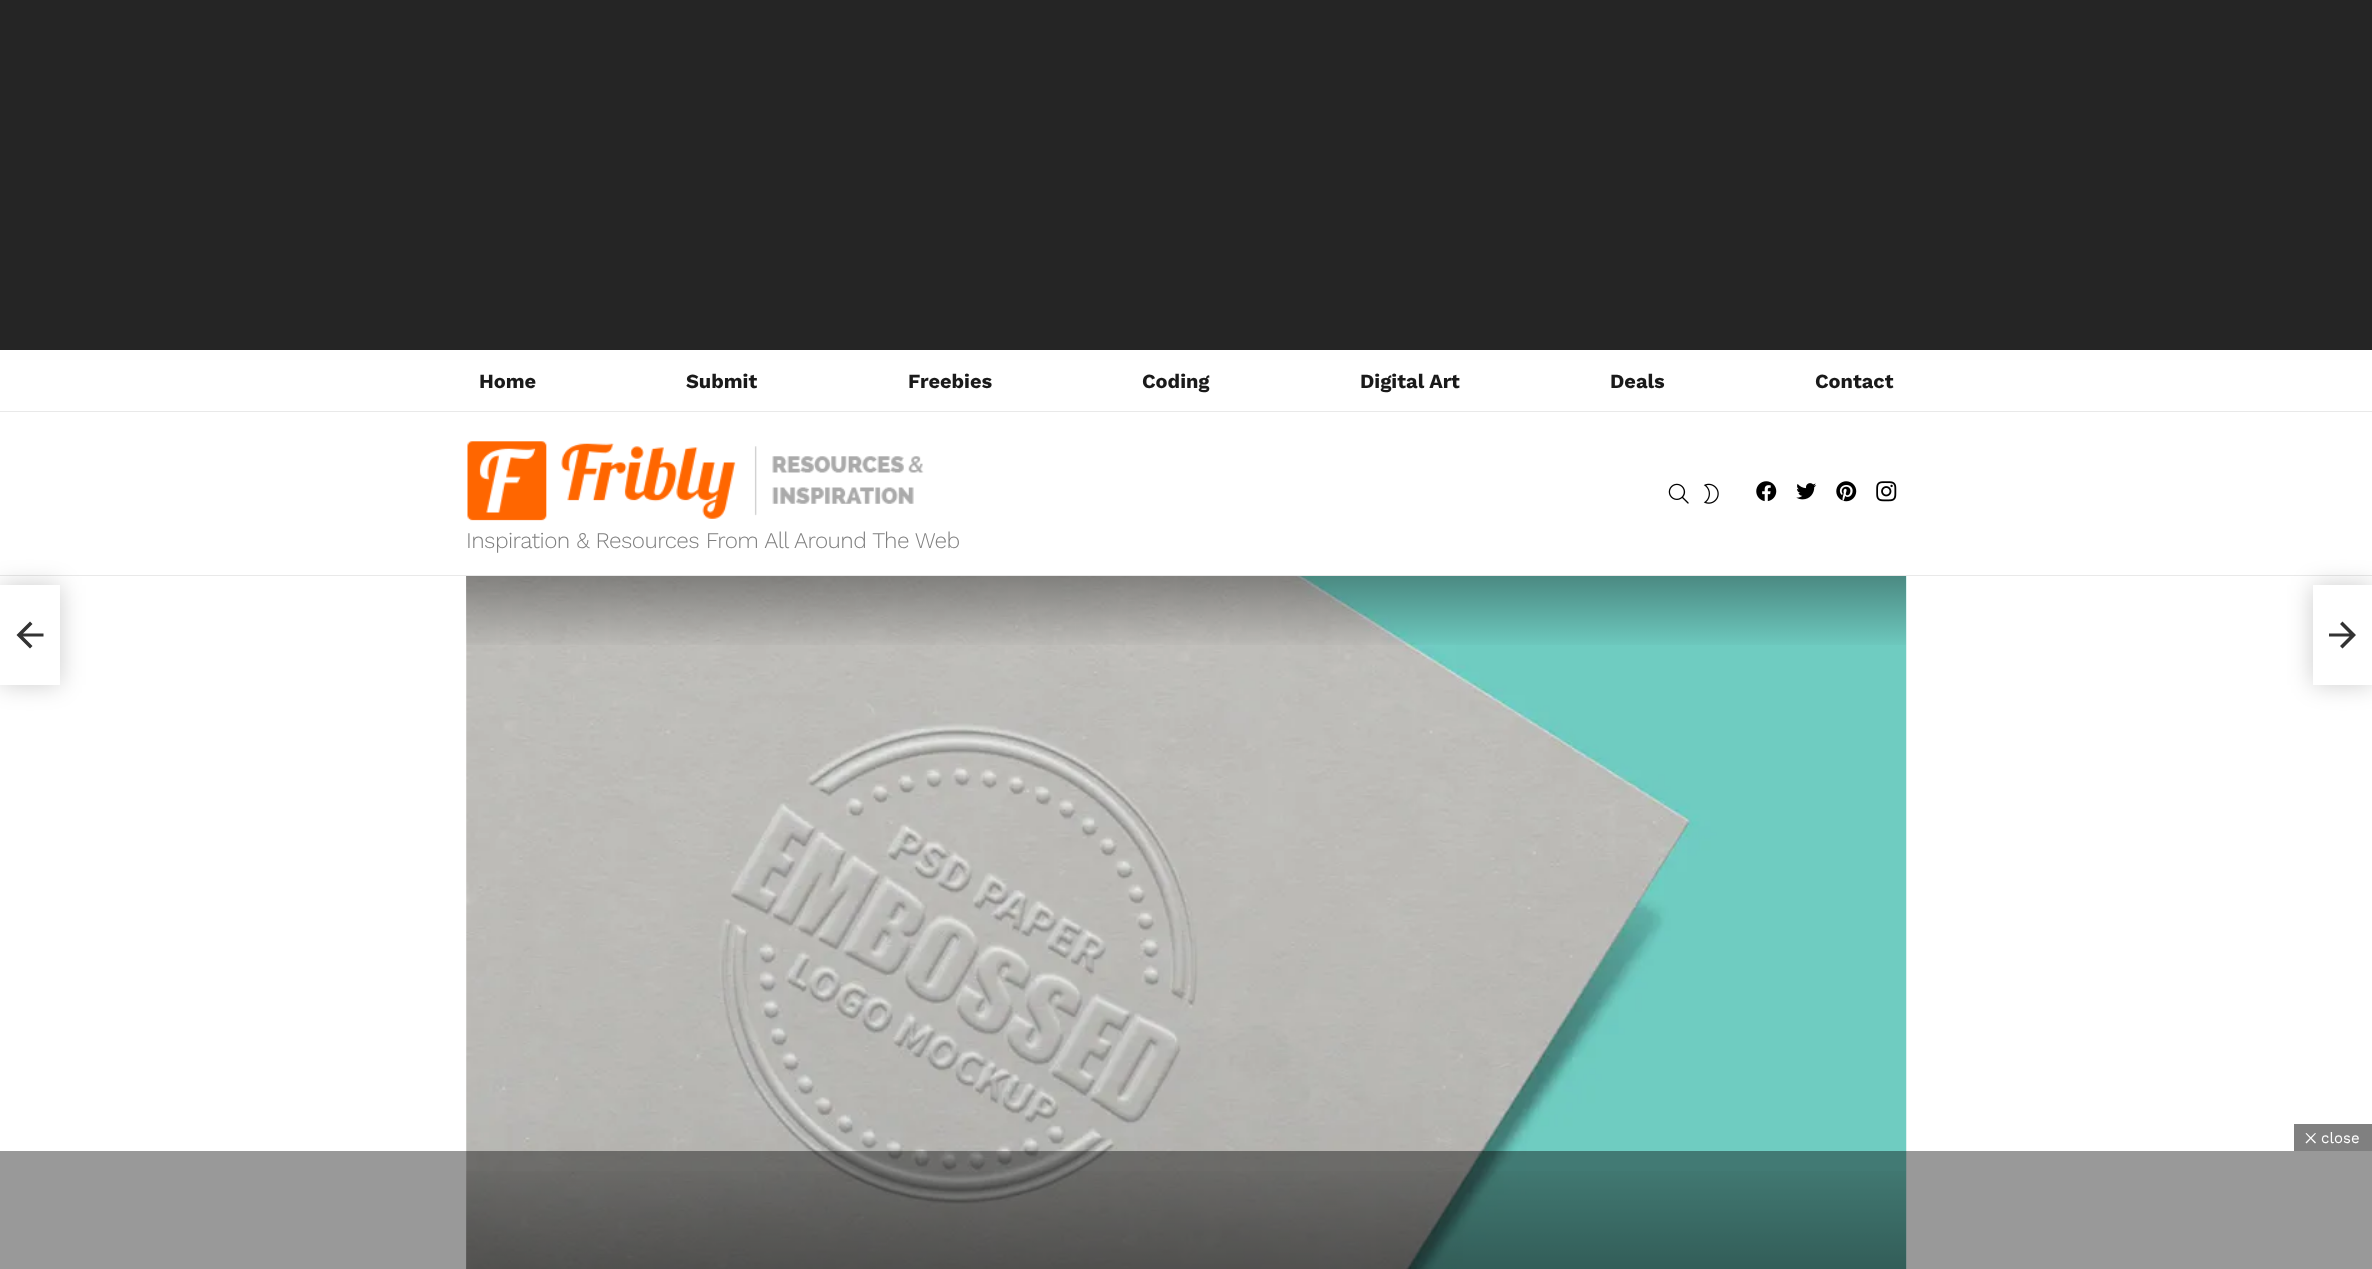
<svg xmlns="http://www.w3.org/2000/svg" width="2372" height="1269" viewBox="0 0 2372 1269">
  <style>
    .t1 { font: bold 20px Work Sans; fill: #1a1a1a; }
    .t2 { font: 300 22.5px Work Sans; letter-spacing: -0.55px; fill: #808080; }
    .t3 { font: 15px Work Sans; fill: #fff; }
  </style>
  <defs>
    <clipPath id="clip1"><path d="M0 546H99V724H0ZM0 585H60V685H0Z" clip-rule="evenodd"/></clipPath>
    <linearGradient id="g1" gradientUnits="userSpaceOnUse" x1="1186" y1="575" x2="1186" y2="1075"><stop offset="0" stop-color="#000" stop-opacity="0.33"/><stop offset="0.15" stop-color="#000" stop-opacity="0"/></linearGradient>
    <linearGradient id="g2" gradientUnits="userSpaceOnUse" x1="1186" y1="1161" x2="1186" y2="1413"><stop offset="0" stop-color="#000" stop-opacity="0"/><stop offset="0.6" stop-color="#000" stop-opacity="0.33"/><stop offset="1" stop-color="#000" stop-opacity="0.67"/></linearGradient>
  </defs>
  <rect width="100%" height="100%" fill="#fff"/>
  <rect x="0" y="0" width="2372" height="350" fill="#252525"/>
  <text x="479" y="388" class="t1">Home</text>
  <text x="686" y="388" class="t1">Submit</text>
  <text x="908" y="388" class="t1">Freebies</text>
  <text x="1142" y="388" class="t1">Coding</text>
  <text x="1360" y="388" class="t1">Digital Art</text>
  <text x="1610" y="388" class="t1">Deals</text>
  <text x="1815" y="388" class="t1">Contact</text>
  <rect x="0" y="411" width="2372" height="1" fill="#e9e9e9"/>
  <image x="1668" y="483" width="21" height="21" href="images/1.png"/>
  <image x="1703" y="483" width="16" height="21" href="images/2.png"/>
  <image x="1756" y="481" width="21" height="21" href="images/3.png"/>
  <image x="1796" y="483" width="21" height="17" href="images/4.png"/>
  <image x="1836" y="481" width="21" height="21" href="images/5.png"/>
  <image x="1876" y="481" width="21" height="21" href="images/6.png"/>
  <image x="467" y="441" width="457" height="80" href="images/7.png"/>
  <text x="466" y="548" class="t2">Inspiration &amp; Resources From All Around The Web</text>
  <rect x="0" y="575" width="2372" height="1" fill="#e9e9e9"/>
  <g clip-path="url(#clip1)">
    <rect x="0" y="585" width="60" height="100" fill="#00000033" filter="blur(12.5px)"/>
  </g>
  <path d="M43.5 633.5H23L32.5 624L30 621.5L16.5 635L30 648.5L32.5 646L23 636.5H43.5Z" fill="#333"/>
  <image x="466" y="576" width="1441" height="693" href="images/8.png"/>
  <rect x="466" y="576" width="1440" height="69" fill="url(#g1)"/>
  <rect x="466" y="1171" width="1440" height="98" fill="url(#g2)"/>
  <rect x="2313" y="585" width="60" height="100" fill="#00000033" filter="blur(12.5px)"/>
  <rect x="2313" y="585" width="59" height="100" fill="#fff"/>
  <path d="M2329 636.5H2349.5L2340 646L2342.5 648.5L2356 635L2342.5 621.5L2340 624L2349.5 633.5H2329Z" fill="#333"/>
  <rect x="0" y="1151" width="2372" height="118" fill="#00000066"/>
  <rect x="2294" y="1124" width="78" height="27" fill="#808080"/>
  <path d="M2306.5 1133L2316 1142.5L2315 1143.5L2305.5 1133.5Z" fill="#fff"/>
  <text x="2321" y="1143" class="t3">close</text>
  <path d="M2315 1133L2316 1133.5L2306.5 1143.5L2305.5 1142.5Z" fill="#fff"/>
</svg>
